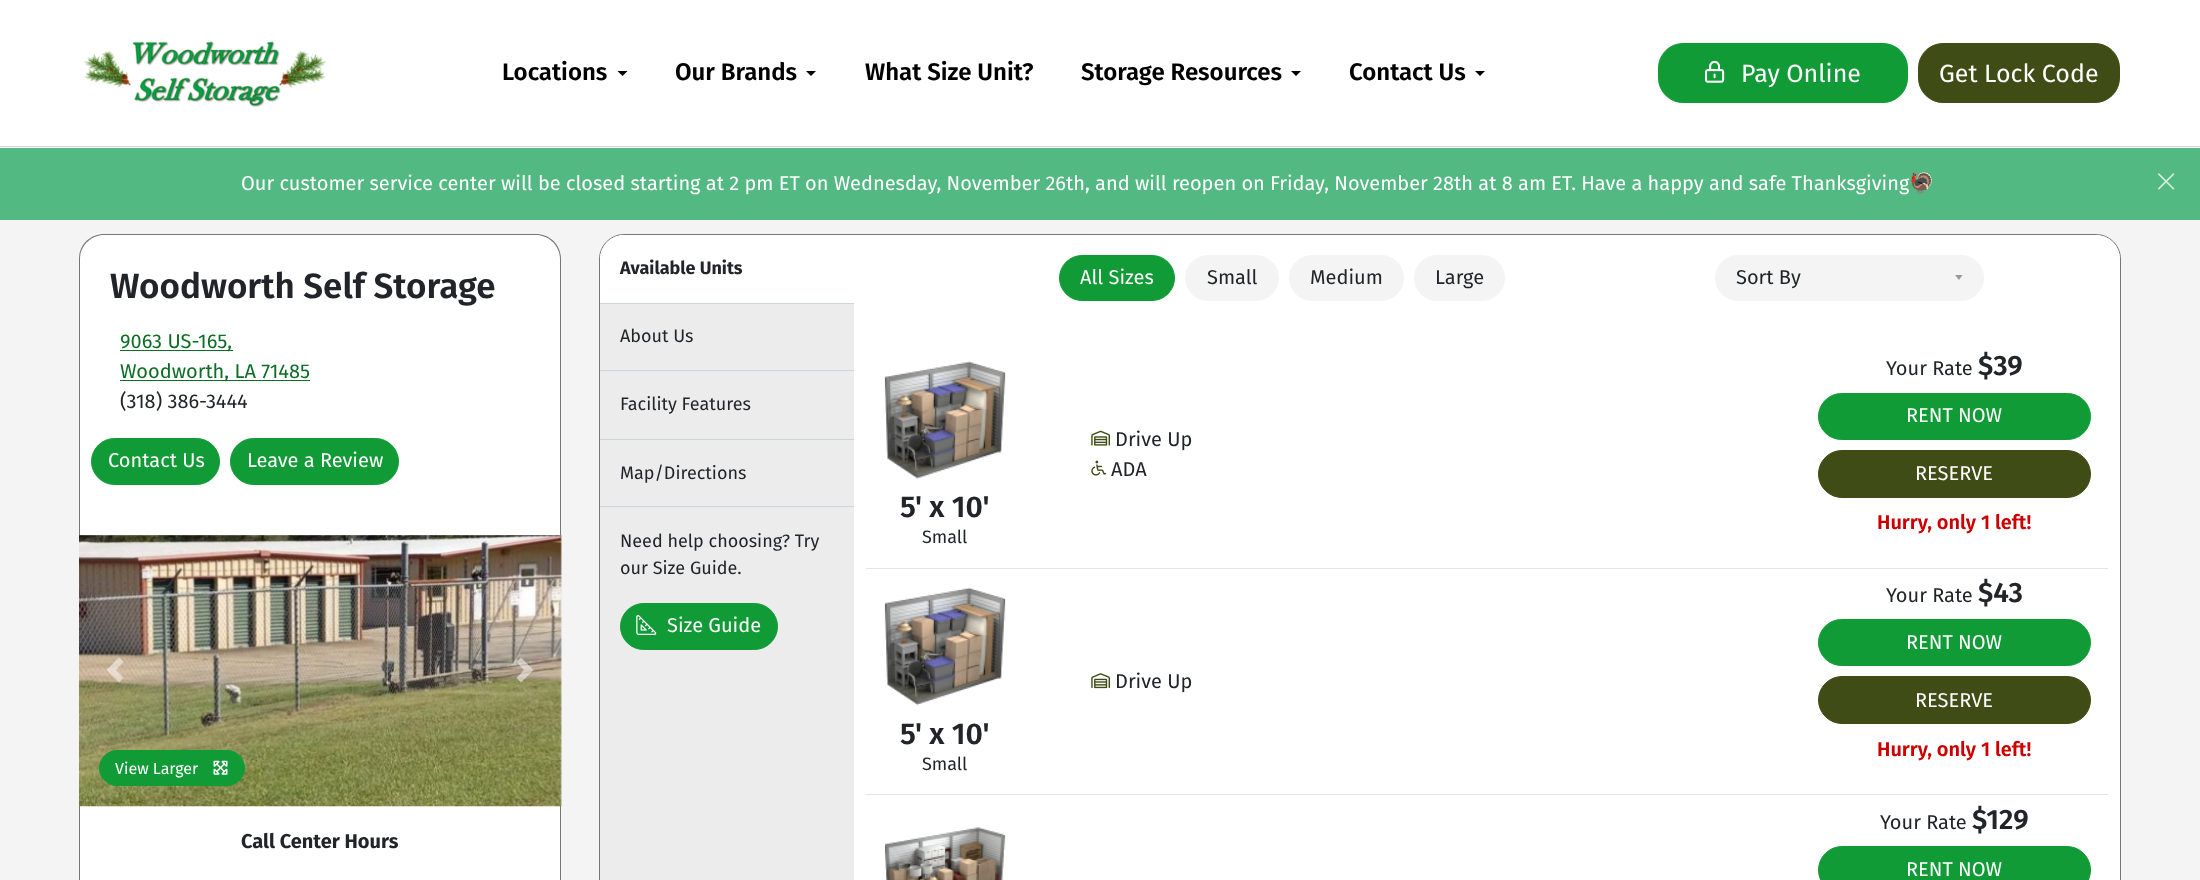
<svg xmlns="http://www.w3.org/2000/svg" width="2200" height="880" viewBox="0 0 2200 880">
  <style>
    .t1 { font: 600 24px Fira Sans; fill: #000; }
    .t2 { font: 25px Fira Sans; fill: #fff; }
    .t3 { font: 20px Fira Sans; fill: #fff; }
    .t4 { font: 20px Noto Color Emoji; fill: #fff; }
    .t5 { font: 600 35px Fira Sans; fill: #212529; }
    .t6 { font: 20px Fira Sans; fill: #0c6d26; }
    .t7 { font: 20px Fira Sans; fill: #212529; }
    .t8 { font: 16px Fira Sans; fill: #fff; }
    .t9 { font: bold 20px Fira Sans; fill: #212529; }
    .t10 { font: bold 18px Fira Sans; fill: #212529; }
    .t11 { font: 18px Fira Sans; fill: #212529; }
    .t12 { font: 600 28px Fira Sans; fill: #212529; }
    .t13 { font: 600 20px Fira Sans; fill: #c00; }
    .t14 { font: 600 30px Fira Sans; fill: #212529; }
  </style>
  <rect width="100%" height="100%" fill="#f4f4f4"/>
  <rect x="0" y="0" width="2200" height="148" fill="#fff"/>
  <rect x="0" y="146" width="2200" height="1" fill="#ced4da"/>
  <image x="83" y="41" width="244" height="66" href="images/1.png"/>
  <text x="502" y="80" class="t1">Locations</text>
  <path d="M617.5 71H627.5L622.5 76Z" fill="#000"/>
  <text x="675" y="80" class="t1">Our Brands</text>
  <path d="M806 71H816L811 76Z" fill="#000"/>
  <text x="865" y="80" class="t1">What Size Unit?</text>
  <text x="1081" y="80" class="t1">Storage Resources</text>
  <path d="M1291 71H1301L1296 76Z" fill="#000"/>
  <text x="1349" y="80" class="t1">Contact Us</text>
  <path d="M1475 71H1485L1480 76Z" fill="#000"/>
  <rect x="1658.5" y="43.5" width="249" height="59" rx="24.5" fill="#119b36" stroke="#119b36"/>
  <image x="1705" y="60" width="20" height="23" href="images/2.png"/>
  <text x="1741" y="82" class="t2">Pay Online</text>
  <rect x="1918.5" y="43.5" width="201" height="59" rx="24.5" fill="#404c15" stroke="#404c15"/>
  <text x="1939" y="82" class="t2">Get Lock Code</text>
  <rect x="0" y="148" width="2200" height="72" fill="#53b982"/>
  <text x="241" y="190" class="t3">Our customer service center will be closed starting at 2 pm ET on Wednesday, November 26th, and will reopen on Friday, November 28th at 8 am ET. Have a happy and safe Thanksgiving</text>
  <text x="1909" y="190" class="t4">🦃</text>
  <image x="2158" y="173" width="17" height="17" href="images/3.png"/>
  <path d="M104 234H536C550 234 561 245 561 259V535H79V259C79 245 90 234 104 234Z" fill="#fff"/>
  <path d="M104 234H536C550 234 561 245 561 259V535H79V259C79 245 90 234 104 234ZM104 235H536C549 235 560 246 560 259V535H80V259C80 246 91 235 104 235Z" fill="#777" fill-rule="evenodd"/>
  <text x="110" y="298" class="t5">Woodworth Self Storage</text>
  <rect x="120" y="350" width="113" height="1" fill="#0c6d26"/>
  <text x="120" y="348" class="t6">9063 US-165,</text>
  <rect x="120" y="380" width="190" height="1" fill="#0c6d26"/>
  <text x="120" y="378" class="t6">Woodworth, LA 71485</text>
  <text x="120" y="408" class="t7">(318) 386-3444</text>
  <rect x="91.5" y="438.5" width="128" height="46" rx="23" fill="#119b36" stroke="#119b36"/>
  <text x="108" y="467" class="t3">Contact Us</text>
  <rect x="230.5" y="438.5" width="168" height="46" rx="23" fill="#119b36" stroke="#119b36"/>
  <text x="247" y="467" class="t3">Leave a Review</text>
  <rect x="80" y="806" width="480" height="74" fill="#fff"/>
  <path d="M79 806H561V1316C561 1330 550 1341 536 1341H104C90 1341 79 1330 79 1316ZM80 806H560V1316C560 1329 549 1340 536 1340H104C91 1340 80 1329 80 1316Z" fill="#777" fill-rule="evenodd"/>
  <image x="79" y="535" width="483" height="272" href="images/4.png"/>
  <path d="M119 657.5L106.5 670L119 682.5L123.5 678L116 670L123.5 662Z" fill="#ffffff80"/>
  <path d="M521 657.5L516.5 662L524 670L516.5 678L521 682.5L533.5 670Z" fill="#ffffff80"/>
  <rect x="99.5" y="750.5" width="145" height="35" rx="17.5" fill="#119b36" stroke="#119b36"/>
  <text x="115" y="774" class="t8">View Larger</text>
  <image x="213" y="760" width="15" height="15" href="images/5.png"/>
  <text x="241" y="848" class="t9">Call Center Hours</text>
  <rect x="599.5" y="234.5" width="1521" height="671" rx="24.5" fill="#fff" stroke="#777"/>
  <path d="M625 235H854V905H625C611 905 600 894 600 880V260C600 246 611 235 625 235Z" fill="#ececec"/>
  <path d="M625 235H854V304H600V260C600 246 611 235 625 235Z" fill="#fff"/>
  <rect x="600" y="303" width="254" height="1" fill="#ced4da"/>
  <text x="620" y="274" class="t10">Available Units</text>
  <rect x="600" y="370" width="254" height="1" fill="#ced4da"/>
  <text x="620" y="342" class="t11">About Us</text>
  <rect x="600" y="439" width="254" height="1" fill="#ced4da"/>
  <text x="620" y="410" class="t11">Facility Features</text>
  <rect x="600" y="506" width="254" height="1" fill="#ced4da"/>
  <text x="620" y="479" class="t11">Map/Directions</text>
  <text x="620" y="547" class="t11">Need help choosing? Try</text>
  <text x="620" y="574" class="t11">our Size Guide.</text>
  <rect x="620.5" y="603.5" width="157" height="46" rx="23" fill="#119b36" stroke="#119b36"/>
  <image x="636" y="615" width="21" height="20" href="images/6.png"/>
  <text x="667" y="632" class="t3">Size Guide</text>
  <path d="M854 235H2095C2109 235 2120 246 2120 260V880C2120 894 2109 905 2095 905H854Z" fill="#fff"/>
  <rect x="1059.5" y="255.5" width="115" height="45" rx="22.5" fill="#119b36" stroke="#119b36"/>
  <text x="1080" y="284" class="t3">All Sizes</text>
  <rect x="1185.5" y="255.5" width="93" height="45" rx="22.5" fill="#f4f4f4" stroke="#f4f4f4"/>
  <text x="1207" y="284" class="t7">Small</text>
  <rect x="1289.5" y="255.5" width="114" height="45" rx="22.5" fill="#f4f4f4" stroke="#f4f4f4"/>
  <text x="1310" y="284" class="t7">Medium</text>
  <rect x="1414.5" y="255.5" width="90" height="45" rx="22.5" fill="#f4f4f4" stroke="#f4f4f4"/>
  <text x="1435" y="284" class="t7">Large</text>
  <rect x="1715.5" y="255.5" width="268" height="45" rx="22.5" fill="#f4f4f4" stroke="#f4f4f4"/>
  <text x="1736" y="284" class="t7">Sort By</text>
  <path d="M1955 275H1962.5L1959 280Z" fill="#999"/>
  <rect x="866" y="568" width="1242" height="1" fill="#e4e4e4"/>
  <image x="1091" y="430" width="19" height="16" href="images/7.png"/>
  <text x="1115" y="446" class="t7">Drive Up</text>
  <image x="1091" y="460" width="16" height="16" href="images/8.png"/>
  <text x="1111" y="476" class="t7">ADA</text>
  <text x="1886" y="375" class="t7">Your Rate</text>
  <text x="1978" y="375" class="t12">$39</text>
  <rect x="1818.5" y="393.5" width="272" height="46" rx="23" fill="#119b36" stroke="#119b36"/>
  <text x="1906" y="422" class="t3">RENT NOW</text>
  <rect x="1818.5" y="450.5" width="272" height="47" rx="23.5" fill="#404c15" stroke="#404c15"/>
  <text x="1915" y="480" class="t3">RESERVE</text>
  <text x="1877" y="529" class="t13">Hurry, only 1 left!</text>
  <image x="884" y="361" width="122" height="118" href="images/9.png"/>
  <text x="900" y="517" class="t14">5' x 10'</text>
  <text x="922" y="543" class="t11">Small</text>
  <rect x="866" y="794" width="1242" height="1" fill="#e4e4e4"/>
  <image x="1091" y="673" width="19" height="16" href="images/10.png"/>
  <text x="1115" y="688" class="t7">Drive Up</text>
  <text x="1886" y="602" class="t7">Your Rate</text>
  <text x="1978" y="602" class="t12">$43</text>
  <rect x="1818.5" y="619.5" width="272" height="46" rx="23" fill="#119b36" stroke="#119b36"/>
  <text x="1906" y="649" class="t3">RENT NOW</text>
  <rect x="1818.5" y="676.5" width="272" height="47" rx="23.5" fill="#404c15" stroke="#404c15"/>
  <text x="1915" y="707" class="t3">RESERVE</text>
  <text x="1877" y="756" class="t13">Hurry, only 1 left!</text>
  <image x="884" y="587" width="122" height="119" href="images/11.png"/>
  <text x="900" y="744" class="t14">5' x 10'</text>
  <text x="922" y="770" class="t11">Small</text>
  <image x="884" y="827" width="122" height="53" href="images/12.png"/>
  <text x="1880" y="829" class="t7">Your Rate</text>
  <text x="1972" y="829" class="t12">$129</text>
  <rect x="1818.5" y="846.5" width="272" height="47" rx="23.5" fill="#119b36" stroke="#119b36"/>
  <text x="1906" y="876" class="t3">RENT NOW</text>
</svg>
